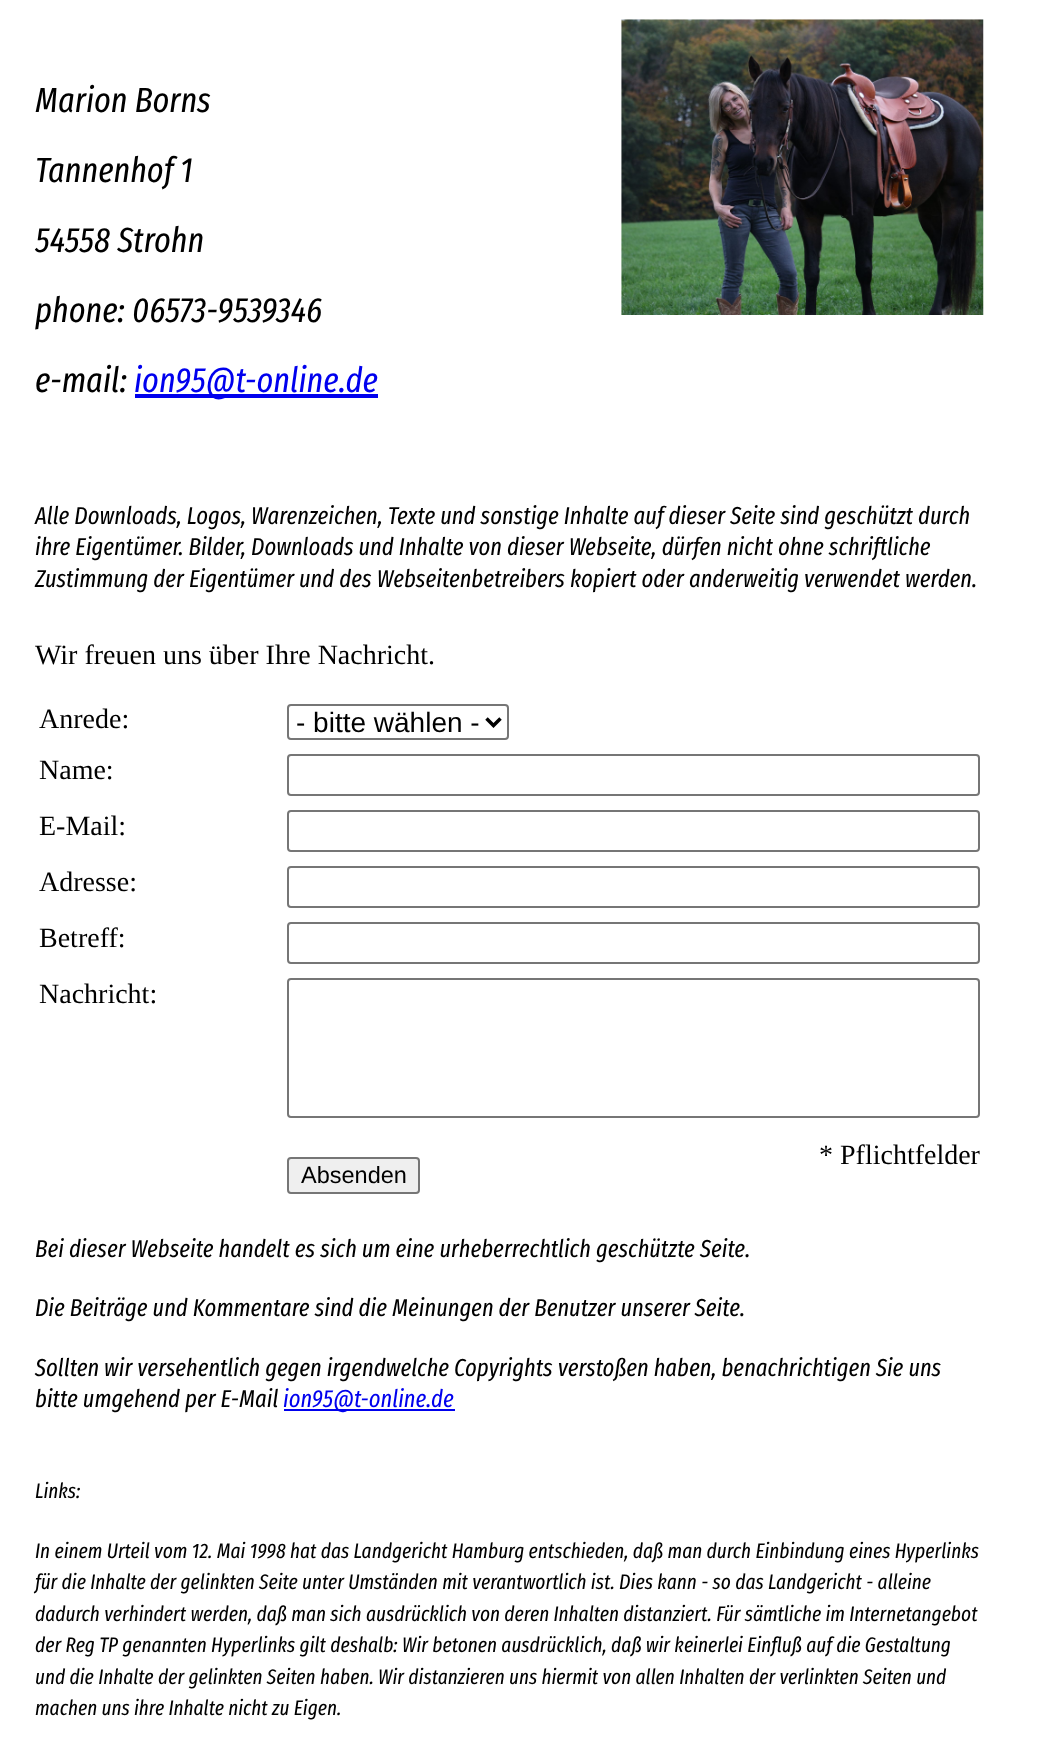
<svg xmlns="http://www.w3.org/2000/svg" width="1052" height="1754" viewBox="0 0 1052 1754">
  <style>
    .t1 { font: italic 35px Fira Sans Extra Condensed; fill: #000; }
    .t2 { font: italic 35px Fira Sans Extra Condensed; fill: #00e; }
    .t3 { font: italic 24.5px Fira Sans Extra Condensed; fill: #000; }
    .t4 { font: 28px Liberation Serif; fill: #000; }
    .t5 { font: 28px Liberation Sans; fill: #000; }
    .t6 { font: 23.5px Liberation Sans; fill: #000; }
    .t7 { font: italic 24.5px Fira Sans Extra Condensed; fill: #00e; }
    .t8 { font: italic 21px Fira Sans Extra Condensed; fill: #000; }
  </style>
  <rect width="100%" height="100%" fill="#fff"/>
  <text x="35" y="112" class="t1">Marion Borns</text>
  <image x="621" y="19" width="363" height="296" href="images/1.png"/>
  <text x="35" y="182" class="t1">Tannenhof 1</text>
  <text x="35" y="252" class="t1">54558 Strohn</text>
  <text x="35" y="322" class="t1">phone: 06573-9539346</text>
  <text x="35" y="392" class="t1">e-mail:</text>
  <rect x="135" y="394" width="243" height="4" fill="#00e"/>
  <text x="134" y="392" class="t2">ion95@t-online.de</text>
  <text x="35" y="524" class="t3">Alle Downloads, Logos, Warenzeichen, Texte und sonstige Inhalte auf dieser Seite sind geschützt durch</text>
  <text x="35" y="555" class="t3">ihre Eigentümer. Bilder, Downloads und Inhalte von dieser Webseite, dürfen nicht ohne schriftliche</text>
  <text x="35" y="587" class="t3">Zustimmung der Eigentümer und des Webseitenbetreibers kopiert oder anderweitig verwendet werden.</text>
  <text x="35" y="664" class="t4">Wir freuen uns über Ihre Nachricht.</text>
  <text x="39" y="728" class="t4">Anrede:</text>
  <rect x="288" y="705" width="220" height="34" rx="3" fill="none" stroke="#767676" stroke-width="2"/>
  <path d="M486.5 718.5L493.5 725.5L500.5 718.5" fill="none" stroke="#000" stroke-width="3.5"/>
  <text x="296" y="732" class="t5">- bitte wählen -</text>
  <text x="39" y="779" class="t4">Name:</text>
  <rect x="288" y="755" width="691" height="40" rx="3" fill="none" stroke="#767676" stroke-width="2"/>
  <text x="39" y="835" class="t4">E-Mail:</text>
  <rect x="288" y="811" width="691" height="40" rx="3" fill="none" stroke="#767676" stroke-width="2"/>
  <text x="39" y="891" class="t4">Adresse:</text>
  <rect x="288" y="867" width="691" height="40" rx="3" fill="none" stroke="#767676" stroke-width="2"/>
  <text x="39" y="947" class="t4">Betreff:</text>
  <rect x="288" y="923" width="691" height="40" rx="3" fill="none" stroke="#767676" stroke-width="2"/>
  <text x="39" y="1003" class="t4">Nachricht:</text>
  <rect x="288" y="979" width="691" height="138" rx="3" fill="none" stroke="#767676" stroke-width="2"/>
  <text x="819" y="1164" class="t4">* Pflichtfelder</text>
  <rect x="288" y="1158" width="131" height="35" rx="3" fill="#efefef" stroke="#767676" stroke-width="2"/>
  <text x="301" y="1183" class="t6">Absenden</text>
  <text x="35" y="1257" class="t3">Bei dieser Webseite handelt es sich um eine urheberrechtlich geschützte Seite.</text>
  <text x="35" y="1316" class="t3">Die Beiträge und Kommentare sind die Meinungen der Benutzer unserer Seite.</text>
  <text x="35" y="1376" class="t3">Sollten wir versehentlich gegen irgendwelche Copyrights verstoßen haben, benachrichtigen Sie uns</text>
  <text x="35" y="1407" class="t3">bitte umgehend per E-Mail</text>
  <rect x="284" y="1409" width="171" height="2" fill="#00e"/>
  <text x="283" y="1407" class="t7">ion95@t-online.de</text>
  <text x="35" y="1498" class="t8">Links:</text>
  <text x="35" y="1558" class="t8">In einem Urteil vom 12. Mai 1998 hat das Landgericht Hamburg entschieden, daß man durch Einbindung eines Hyperlinks</text>
  <text x="35" y="1589" class="t8">für die Inhalte der gelinkten Seite unter Umständen mit verantwortlich ist. Dies kann - so das Landgericht - alleine</text>
  <text x="35" y="1621" class="t8">dadurch verhindert werden, daß man sich ausdrücklich von deren Inhalten distanziert. Für sämtliche im Internetangebot</text>
  <text x="35" y="1652" class="t8">der Reg TP genannten Hyperlinks gilt deshalb: Wir betonen ausdrücklich, daß wir keinerlei Einfluß auf die Gestaltung</text>
  <text x="35" y="1684" class="t8">und die Inhalte der gelinkten Seiten haben. Wir distanzieren uns hiermit von allen Inhalten der verlinkten Seiten und</text>
  <text x="35" y="1715" class="t8">machen uns ihre Inhalte nicht zu Eigen.</text>
</svg>
